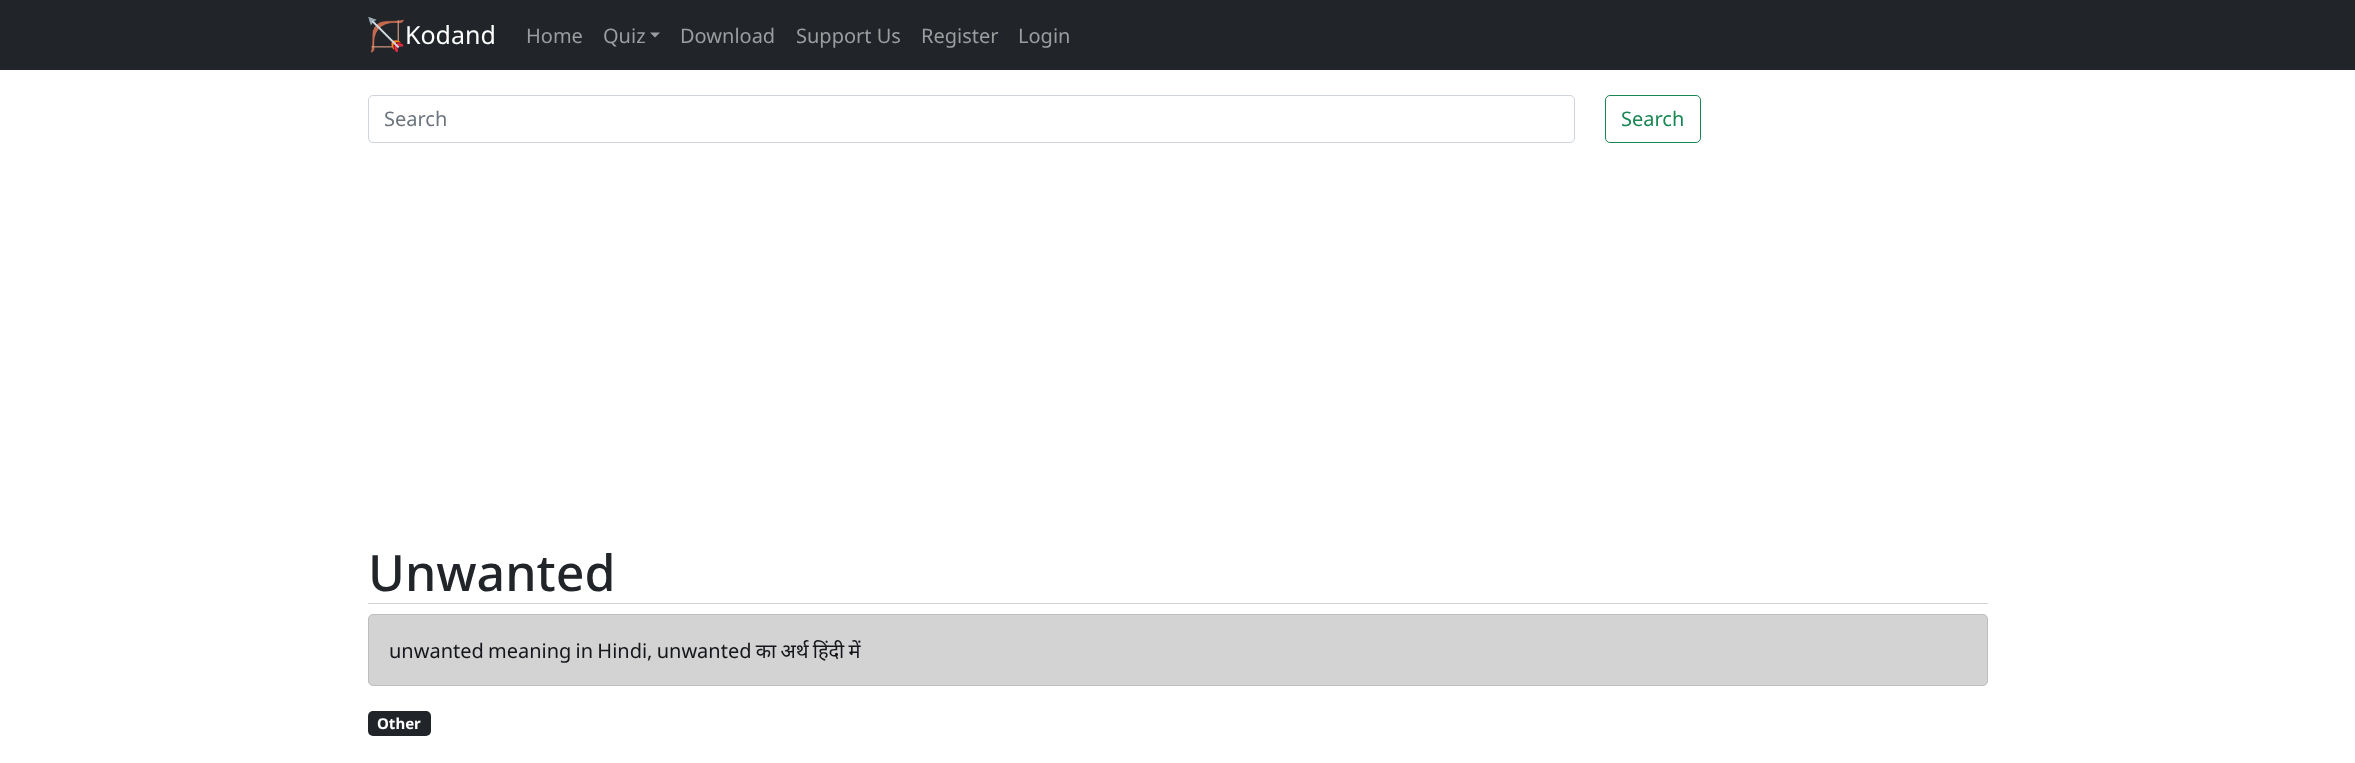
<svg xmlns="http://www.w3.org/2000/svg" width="2355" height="763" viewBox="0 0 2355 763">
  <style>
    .t1 { font: 25px Noto Sans; fill: #fff; }
    .t2 { font: 20px Noto Sans; fill: #9b9d9f; }
    .t3 { font: 20px Noto Sans; fill: #6c757d; }
    .t4 { font: 20px Noto Sans; fill: #198754; }
    .t5 { font: 500 50px Noto Sans; fill: #212529; }
    .t6 { font: 20px Noto Sans; fill: #141619; }
    .t7 { font: bold 15px Noto Sans; fill: #fff; }
  </style>
  <rect width="100%" height="100%" fill="#fff"/>
  <rect x="0" y="0" width="2355" height="70" fill="#212529"/>
  <image x="368" y="17" width="36" height="36" href="images/1.png"/>
  <text x="405" y="44" class="t1">Kodand</text>
  <text x="526" y="43" class="t2">Home</text>
  <text x="603" y="43" class="t2">Quiz</text>
  <path d="M650 32.5H660L655 37.5Z" fill="#9b9d9f"/>
  <text x="680" y="43" class="t2">Download</text>
  <text x="796" y="43" class="t2">Support Us</text>
  <text x="921" y="43" class="t2">Register</text>
  <text x="1018" y="43" class="t2">Login</text>
  <rect x="368.5" y="95.5" width="1206" height="47" rx="4.5" fill="none" stroke="#ced4da"/>
  <text x="384" y="126" class="t3">Search</text>
  <rect x="1605.5" y="95.5" width="95" height="47" rx="4.5" fill="none" stroke="#198754"/>
  <text x="1621" y="126" class="t4">Search</text>
  <rect x="368" y="603" width="1620" height="1" fill="#d3d3d3"/>
  <text x="368" y="591" class="t5">Unwanted</text>
  <rect x="368.5" y="614.5" width="1619" height="71" rx="4.5" fill="#d3d3d4" stroke="#bcbebf"/>
  <text x="389" y="658" word-spacing="-1" class="t6">unwanted meaning in Hindi, unwanted का अर्थ हिंदी में</text>
  <rect x="368" y="711" width="63" height="25" rx="5" fill="#212529"/>
  <text x="377" y="729" class="t7">Other</text>
</svg>
